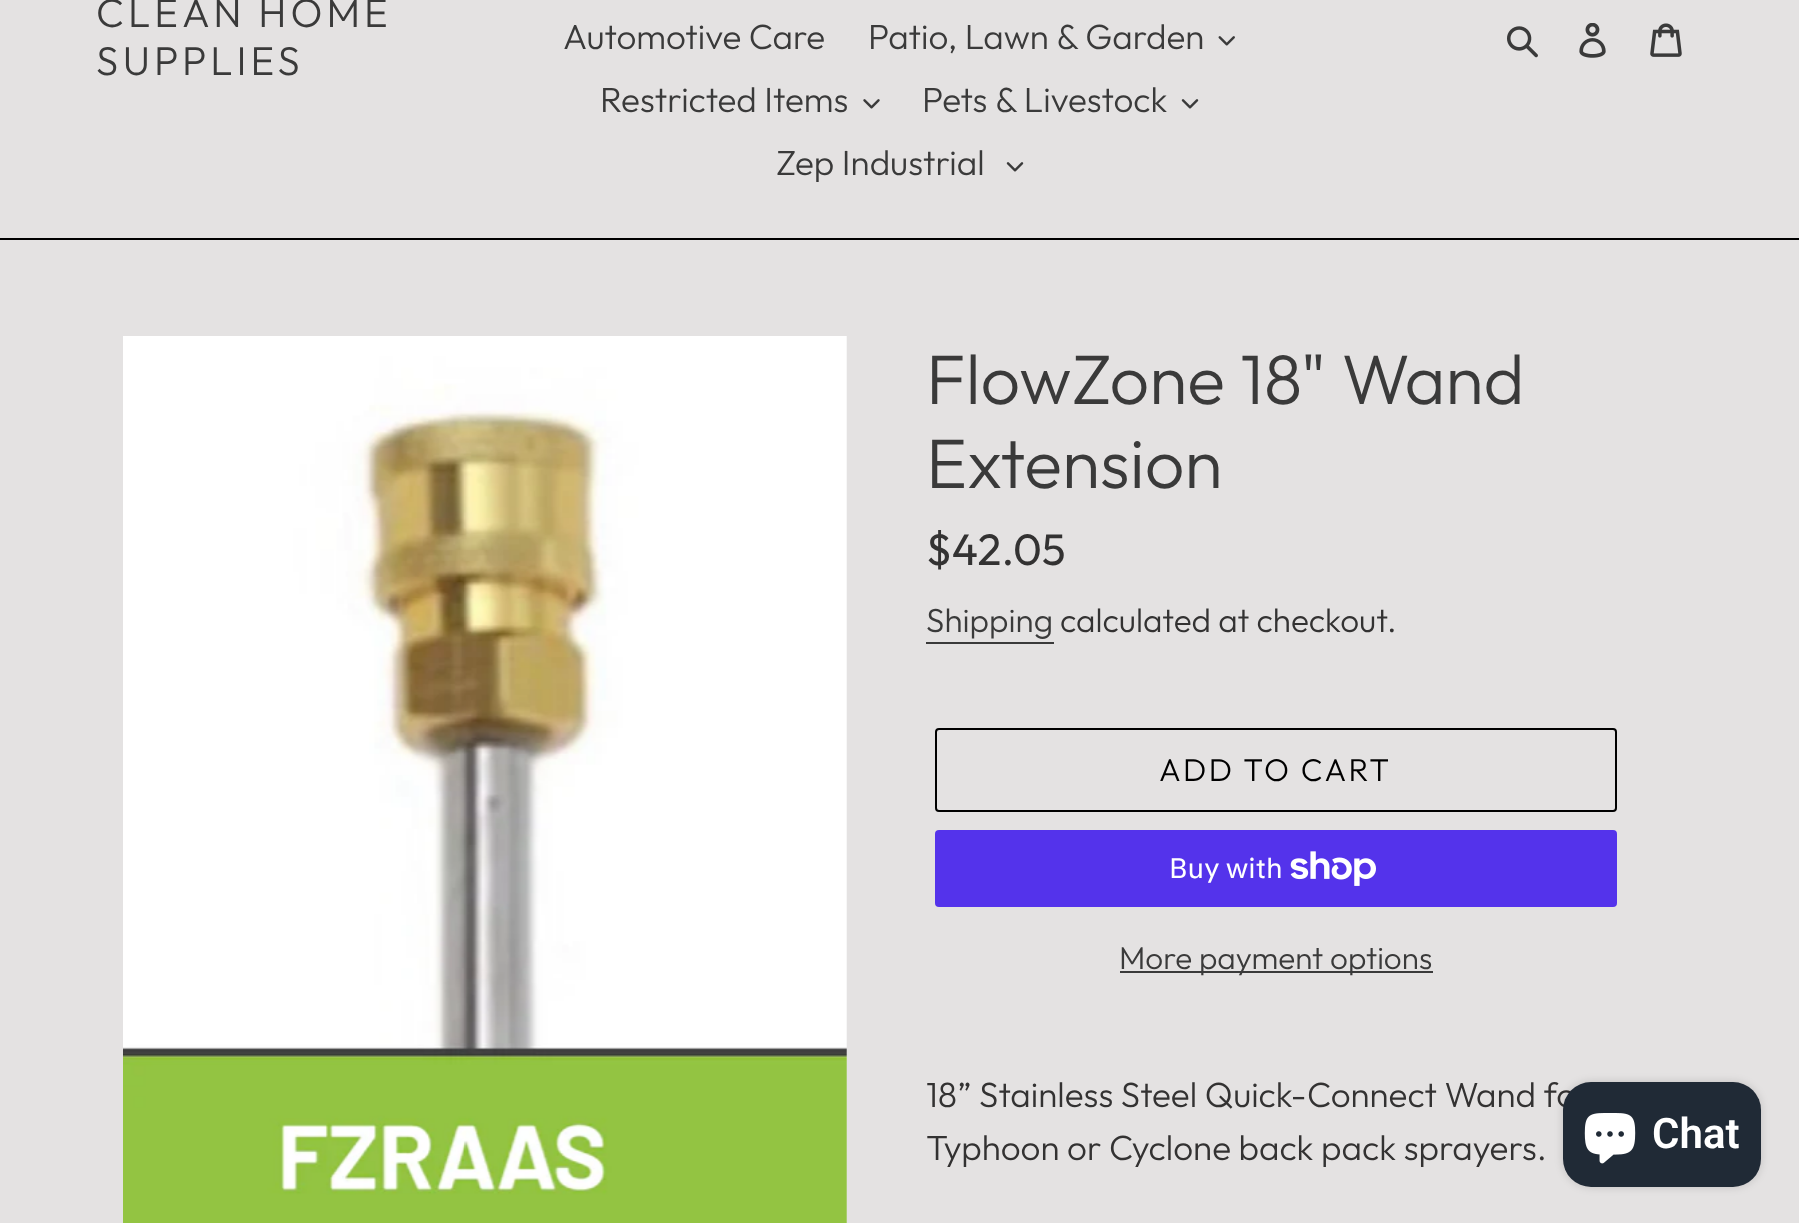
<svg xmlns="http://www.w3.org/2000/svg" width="1799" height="1223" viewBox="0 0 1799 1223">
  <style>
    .t1 { font: 300 40.25px Outfit; letter-spacing: 4px; fill: #3a3a3a; }
    .t2 { font: 300 35px Outfit; fill: #3a3a3a; }
    .t3 { font: 300 70px Outfit; fill: #3a3a3a; }
    .t4 { font: 44px Outfit; fill: #333232; }
    .t5 { font: 300 33.25px Outfit; fill: #3a3a3a; }
    .t6 { font: 300 33.25px Outfit; fill: #333232; }
    .t7 { font: 300 31.5px Outfit; letter-spacing: 2.5px; fill: #000; }
    .t8 { font: 28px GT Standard; fill: #fff; }
    .t9 { font: 300 31.5px Outfit; fill: #3a3a3a; }
    .t10 { font: 300 35px Outfit; fill: #333232; }
    .t11 { font: 600 42px Roboto; fill: #fff; }
  </style>
  <rect width="100%" height="100%" fill="#e4e2e2"/>
  <rect x="0" y="238" width="1799" height="2" fill="#000"/>
  <text x="96" y="27" class="t1">CLEAN HOME</text>
  <text x="96" y="75" class="t1">SUPPLIES</text>
  <text x="563" y="49" class="t2">Automotive Care</text>
  <text x="868" y="49" class="t2">Patio, Lawn &amp; Garden</text>
  <image x="1218" y="36" width="17" height="10" href="images/1.png"/>
  <text x="600" y="112" class="t2">Restricted Items</text>
  <image x="863" y="99" width="17" height="10" href="images/2.png"/>
  <text x="922" y="112" class="t2">Pets &amp; Livestock</text>
  <image x="1181" y="99" width="18" height="10" href="images/3.png"/>
  <text x="776" y="175" class="t2">Zep Industrial</text>
  <image x="1006" y="162" width="18" height="10" href="images/3.png"/>
  <image x="1507" y="26" width="31" height="32" href="images/4.png"/>
  <image x="1579" y="23" width="27" height="35" href="images/5.png"/>
  <image x="1650" y="23" width="32" height="34" href="images/6.png"/>
  <image x="123" y="336" width="724" height="887" href="images/7.png"/>
  <text x="926" y="404" class="t3">FlowZone 18" Wand</text>
  <text x="926" y="488" class="t3">Extension</text>
  <text x="926" y="565" class="t4">$42.05</text>
  <text x="926" y="632" class="t5">Shipping</text>
  <rect x="926" y="642" width="128" height="2" fill="#3a3a3a"/>
  <text x="1060" y="632" class="t6">calculated at checkout.</text>
  <rect x="936" y="729" width="680" height="82" rx="3" fill="none" stroke="#000" stroke-width="2"/>
  <text x="1159" y="781" class="t7">ADD TO CART</text>
  <rect x="935" y="830" width="682" height="77" rx="4" fill="#5433eb"/>
  <text x="1169" y="878" class="t8">Buy with</text>
  <image x="1290" y="851" width="86" height="35" href="images/8.png"/>
  <rect x="1120" y="971" width="313" height="2" fill="#3a3a3a"/>
  <text x="1119" y="969" class="t9">More payment options</text>
  <text x="926" y="1107" class="t10">18” Stainless Steel Quick-Connect Wand fo</text>
  <text x="926" y="1160" class="t10">Typhoon or Cyclone back pack sprayers.</text>
  <rect x="1563" y="1082" width="198" height="105" rx="28" fill="#00000026" filter="blur(4.5px)"/>
  <rect x="1563" y="1082" width="198" height="105" rx="28" fill="#202a36"/>
  <image x="1584" y="1113" width="52" height="51" href="images/9.png"/>
  <text x="1652" y="1148" class="t11">Chat</text>
</svg>
